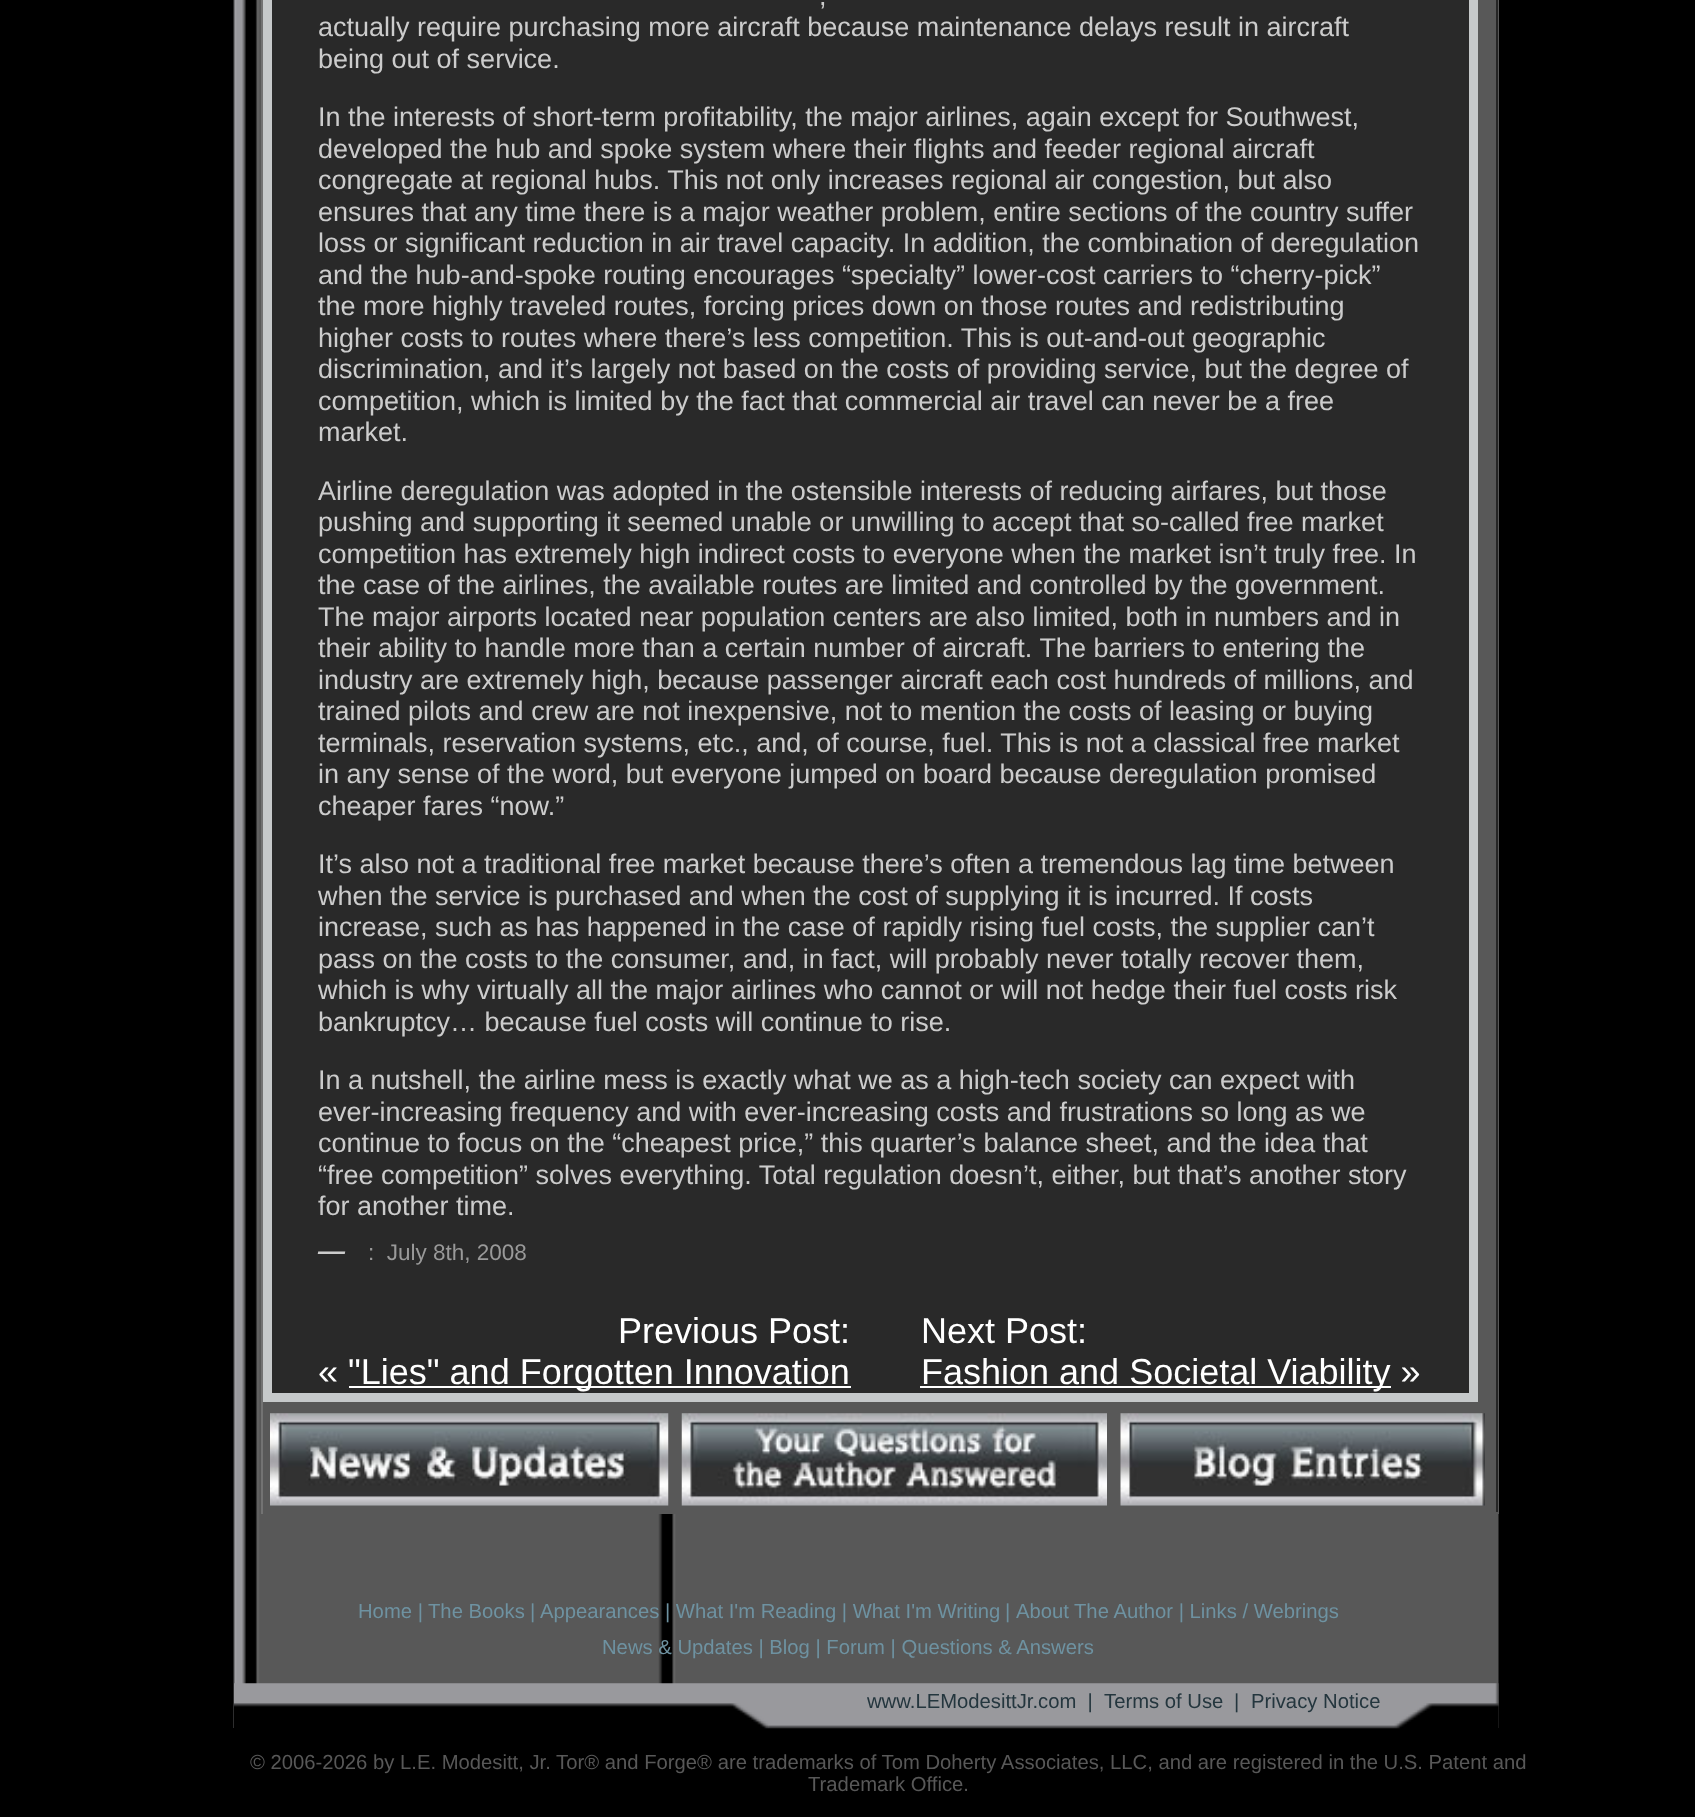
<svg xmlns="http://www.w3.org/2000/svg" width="1695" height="1817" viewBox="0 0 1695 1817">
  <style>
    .t1 { font: 27px Liberation Sans; fill: #ccc; }
    .t2 { font: italic bold 27px Liberation Sans; fill: #ccc; }
    .t3 { font: 22.5px Liberation Sans; fill: #999; }
    .t4 { font: 36px Liberation Sans; fill: #fff; }
    .t5 { font: 20.25px Liberation Sans; fill: #6e92a1; }
    .t6 { font: 20.25px Liberation Sans; fill: #24363e; }
    .t7 { font: 20.25px Liberation Sans; fill: #585858; }
  </style>
  <rect width="100%" height="100%" fill="#000"/>
  <image x="233" y="0" width="1266" height="1728" href="images/1.png"/>
  <rect x="658" y="0" width="841" height="1512" fill="#585858"/>
  <rect x="1496" y="0" width="2" height="1514" fill="#252525"/>
  <rect x="658" y="1512" width="841" height="2" fill="#585858"/>
  <rect x="261" y="0" width="2" height="1514" fill="#737373"/>
  <rect x="267.5" y="-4.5" width="1206" height="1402" fill="#292929" stroke="#c6c9ca" stroke-width="9"/>
  <text x="819" y="5" class="t1">,</text>
  <text x="318" y="36" class="t1">actually require purchasing more aircraft because maintenance delays result in aircraft</text>
  <text x="318" y="68" class="t1">being out of service.</text>
  <text x="318" y="126" class="t1">In the interests of short-term profitability, the major airlines, again except for Southwest,</text>
  <text x="318" y="158" class="t1">developed the hub and spoke system where their flights and feeder regional aircraft</text>
  <text x="318" y="189" class="t1">congregate at regional hubs. This not only increases regional air congestion, but also</text>
  <text x="318" y="221" class="t1">ensures that any time there is a major weather problem, entire sections of the country suffer</text>
  <text x="318" y="252" class="t1">loss or significant reduction in air travel capacity. In addition, the combination of deregulation</text>
  <text x="318" y="284" class="t1">and the hub-and-spoke routing encourages “specialty” lower-cost carriers to “cherry-pick”</text>
  <text x="318" y="315" class="t1">the more highly traveled routes, forcing prices down on those routes and redistributing</text>
  <text x="318" y="347" class="t1">higher costs to routes where there’s less competition. This is out-and-out geographic</text>
  <text x="318" y="378" class="t1">discrimination, and it’s largely not based on the costs of providing service, but the degree of</text>
  <text x="318" y="410" class="t1">competition, which is limited by the fact that commercial air travel can never be a free</text>
  <text x="318" y="441" class="t1">market.</text>
  <text x="318" y="500" class="t1">Airline deregulation was adopted in the ostensible interests of reducing airfares, but those</text>
  <text x="318" y="531" class="t1">pushing and supporting it seemed unable or unwilling to accept that so-called free market</text>
  <text x="318" y="563" class="t1">competition has extremely high indirect costs to everyone when the market isn’t truly free. In</text>
  <text x="318" y="594" class="t1">the case of the airlines, the available routes are limited and controlled by the government.</text>
  <text x="318" y="626" class="t1">The major airports located near population centers are also limited, both in numbers and in</text>
  <text x="318" y="657" class="t1">their ability to handle more than a certain number of aircraft. The barriers to entering the</text>
  <text x="318" y="689" class="t1">industry are extremely high, because passenger aircraft each cost hundreds of millions, and</text>
  <text x="318" y="720" class="t1">trained pilots and crew are not inexpensive, not to mention the costs of leasing or buying</text>
  <text x="318" y="752" class="t1">terminals, reservation systems, etc., and, of course, fuel. This is not a classical free market</text>
  <text x="318" y="783" class="t1">in any sense of the word, but everyone jumped on board because deregulation promised</text>
  <text x="318" y="815" class="t1">cheaper fares “now.”</text>
  <text x="318" y="873" class="t1">It’s also not a traditional free market because there’s often a tremendous lag time between</text>
  <text x="318" y="905" class="t1">when the service is purchased and when the cost of supplying it is incurred. If costs</text>
  <text x="318" y="936" class="t1">increase, such as has happened in the case of rapidly rising fuel costs, the supplier can’t</text>
  <text x="318" y="968" class="t1">pass on the costs to the consumer, and, in fact, will probably never totally recover them,</text>
  <text x="318" y="999" class="t1">which is why virtually all the major airlines who cannot or will not hedge their fuel costs risk</text>
  <text x="318" y="1031" class="t1">bankruptcy… because fuel costs will continue to rise.</text>
  <text x="318" y="1089" class="t1">In a nutshell, the airline mess is exactly what we as a high-tech society can expect with</text>
  <text x="318" y="1121" class="t1">ever-increasing frequency and with ever-increasing costs and frustrations so long as we</text>
  <text x="318" y="1152" class="t1">continue to focus on the “cheapest price,” this quarter’s balance sheet, and the idea that</text>
  <text x="318" y="1184" class="t1">“free competition” solves everything. Total regulation doesn’t, either, but that’s another story</text>
  <text x="318" y="1215" class="t1">for another time.</text>
  <text x="318" y="1260" class="t2">—</text>
  <text x="368" y="1260" class="t3" xml:space="preserve">:  July 8th, 2008</text>
  <text x="618" y="1343" class="t4">Previous Post:</text>
  <text x="318" y="1384" class="t4">«</text>
  <rect x="349" y="1386" width="502" height="2" fill="#fff"/>
  <text x="348" y="1384" class="t4">"Lies" and Forgotten Innovation</text>
  <text x="921" y="1343" class="t4">Next Post:</text>
  <rect x="920" y="1386" width="471" height="2" fill="#fff"/>
  <text x="921" y="1384" class="t4">Fashion and Societal Viability »</text>
  <image x="270" y="1413" width="399" height="93" href="images/2.png"/>
  <image x="681" y="1413" width="426" height="93" href="images/3.png"/>
  <image x="1120" y="1413" width="365" height="93" href="images/4.png"/>
  <text x="358" y="1618" class="t5">Home |</text>
  <text x="428" y="1618" class="t5">The Books</text>
  <text x="530" y="1618" class="t5">|</text>
  <text x="540" y="1618" class="t5">Appearances | What I'm Reading | What I'm Writing</text>
  <text x="1005" y="1618" class="t5">|</text>
  <text x="1016" y="1618" class="t5">About</text>
  <text x="1074" y="1618" class="t5">The Author | Links / Webrings</text>
  <text x="602" y="1654" class="t5">News &amp; Updates | Blog | Forum | Questions &amp; Answers</text>
  <image x="234" y="1683" width="1265" height="46" href="images/5.png"/>
  <text x="867" y="1708" class="t6" xml:space="preserve">www.LEModesittJr.com  |</text>
  <text x="1104" y="1708" class="t6">Terms of Use</text>
  <text x="1234" y="1708" class="t6">|</text>
  <text x="1251" y="1708" class="t6">Privacy Notice</text>
  <text x="250" y="1769" class="t7">© 2006-2026 by L.E. Modesitt, Jr. Tor® and Forge® are trademarks of Tom Doherty Associates, LLC, and are registered in the U.S. Patent and</text>
  <text x="808" y="1791" class="t7">Trademark Office.</text>
</svg>
